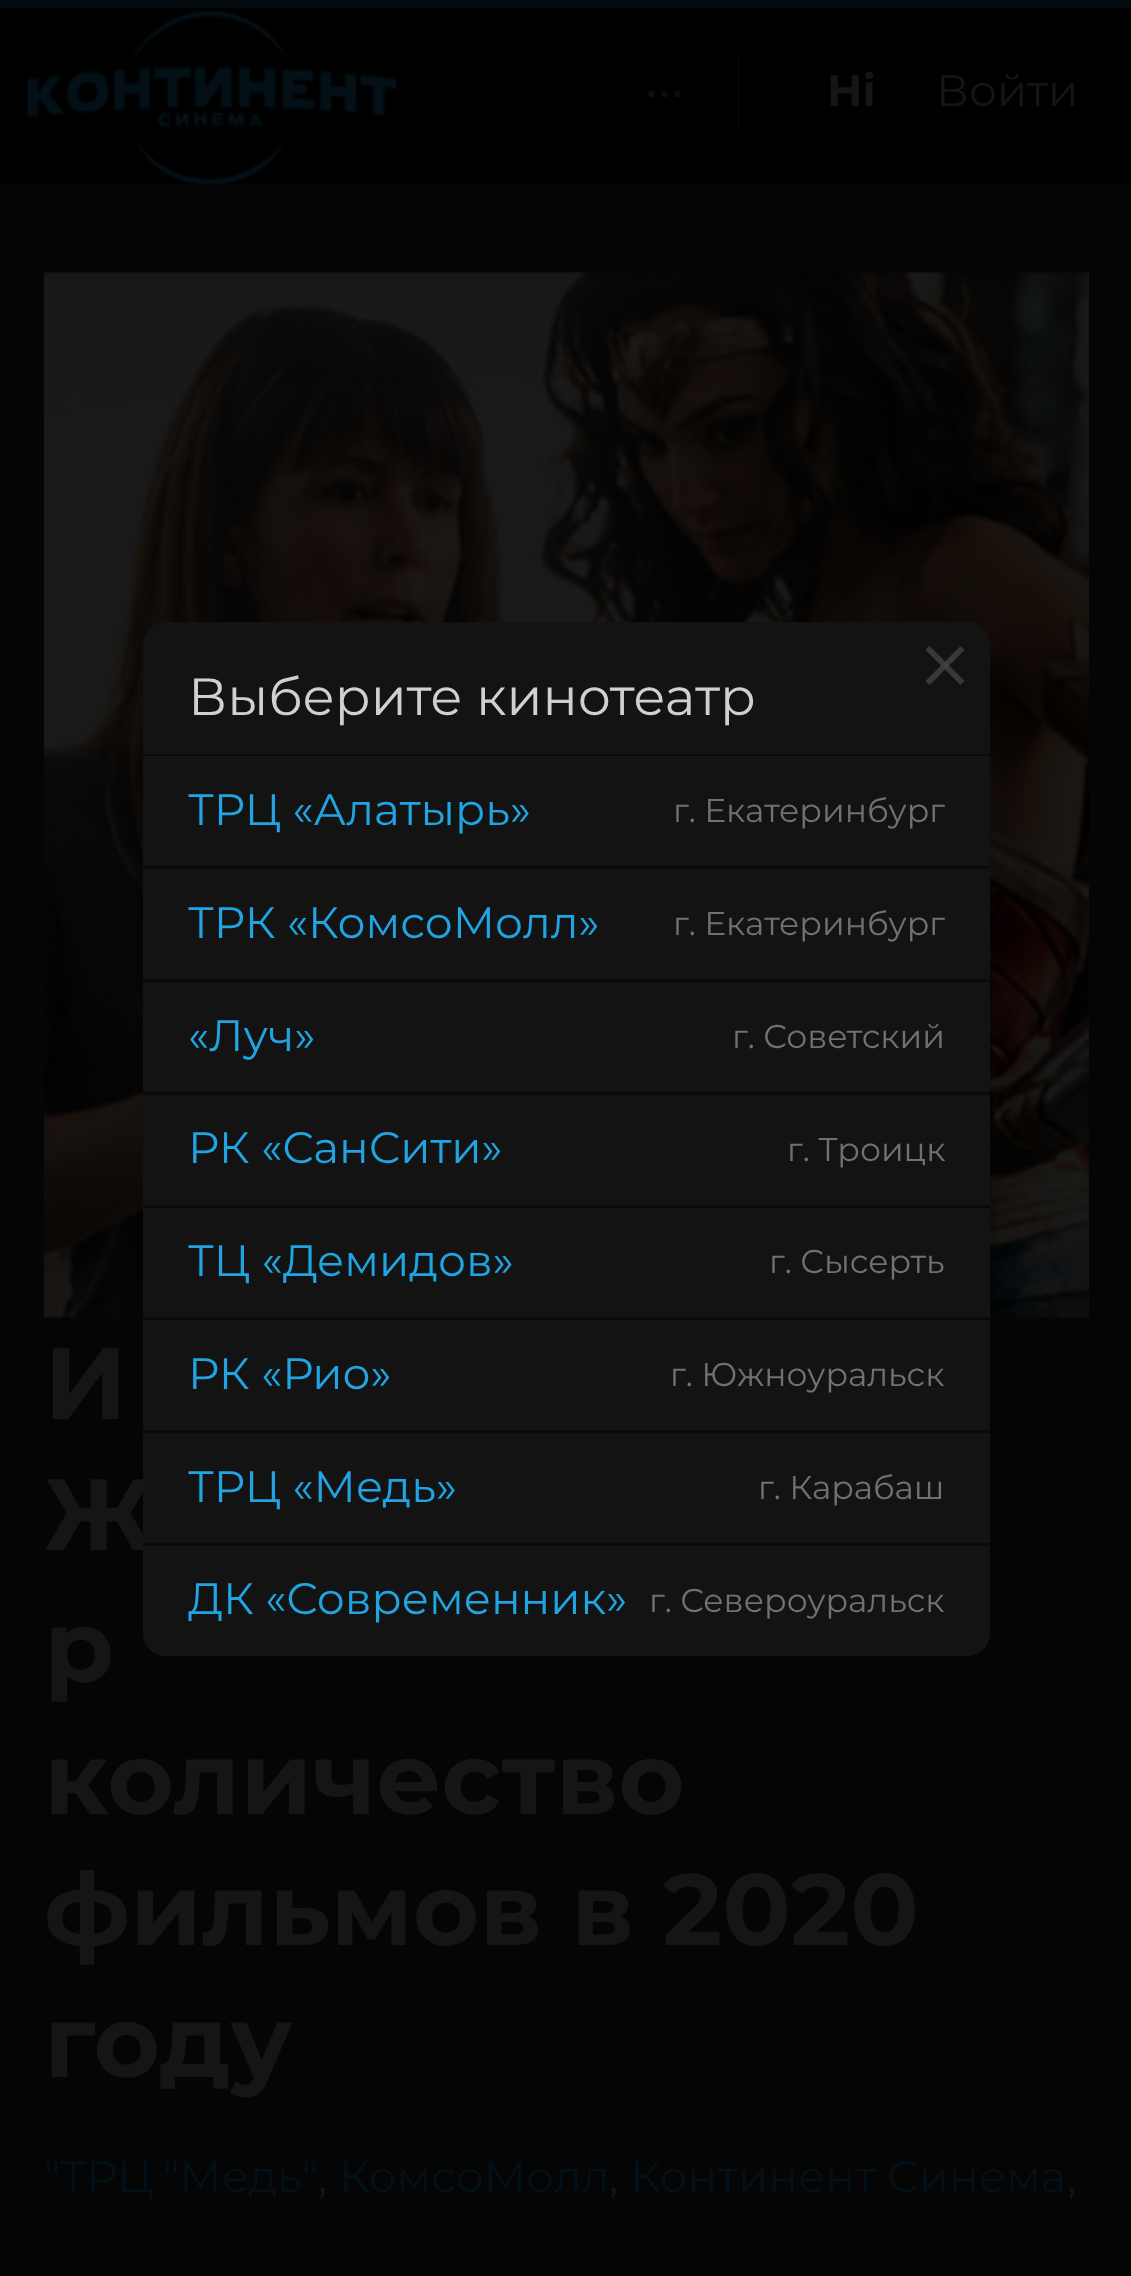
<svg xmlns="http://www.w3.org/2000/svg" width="1131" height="2276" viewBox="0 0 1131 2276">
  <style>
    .t1 { font: 44px Montserrat; fill: #031017; }
    .t2 { font: bold 44px Montserrat; fill: #151515; }
    .t3 { font: 44px Montserrat; fill: #151515; }
    .t4 { font: bold 101.25px Montserrat; fill: #151515; }
    .t5 { font: 52.25px Montserrat; fill: #d0d0d0; }
    .t6 { font: 44px Montserrat; fill: #20a4e2; }
    .t7 { font: 33px Montserrat; fill: #717171; }
  </style>
  <rect width="100%" height="100%" fill="#050505"/>
  <rect x="0" y="0" width="1131" height="8" fill="#020a0e"/>
  <rect x="0" y="8" width="1131" height="176" fill="#000"/>
  <rect x="737" y="55" width="3" height="74" fill="#040404"/>
  <image x="27" y="11" width="369" height="174" href="images/1.png"/>
  <text x="645" y="106" class="t1">•••</text>
  <text x="827" y="106" class="t2">Hi</text>
  <text x="936" y="106" class="t3">Войти</text>
  <image x="44" y="271" width="1045" height="1047" href="images/2.png"/>
  <text x="44" y="1419" class="t4">И</text>
  <text x="44" y="1550" class="t4">Ж</text>
  <text x="44" y="1682" class="t4">р</text>
  <text x="44" y="1814" class="t4">количество</text>
  <text x="44" y="1945" class="t4">фильмов в 2020</text>
  <text x="44" y="2077" class="t4">году</text>
  <text x="44" y="2192" word-spacing="-2" class="t1">"ТРЦ "Медь"</text>
  <text x="318" y="2192" class="t3">,</text>
  <text x="339" y="2192" class="t1">КомсоМолл</text>
  <text x="609" y="2192" class="t3">,</text>
  <text x="630" y="2192" class="t1">Континент Синема</text>
  <text x="1067" y="2192" class="t3">,</text>
  <rect x="143" y="622" width="847" height="1034" rx="22" fill="#000000e6"/>
  <path d="M165 622H968C980 622 990 632 990 644V756H143V644C143 632 153 622 165 622Z" fill="#141414f5"/>
  <path d="M960.5 646L964.5 650L929.5 685L925.5 681Z" fill="#393939"/>
  <path d="M925.5 650L929.5 646L964.5 681L960.5 685Z" fill="#424242cc"/>
  <rect x="143" y="754" width="847" height="2" fill="#00000080"/>
  <text x="188" y="715" class="t5">Выберите кинотеатр</text>
  <path d="M143 756H990V1634C990 1646 980 1656 968 1656H165C153 1656 143 1646 143 1634Z" fill="#141414f5"/>
  <rect x="143" y="866" width="847" height="3" fill="#0a0a0a"/>
  <text x="188" y="825" class="t6">ТРЦ «Алатырь»</text>
  <text x="673" y="822" class="t7">г. Екатеринбург</text>
  <rect x="143" y="979" width="847" height="3" fill="#0a0a0a"/>
  <text x="188" y="938" class="t6">ТРК «КомсоМолл»</text>
  <text x="673" y="935" class="t7">г. Екатеринбург</text>
  <rect x="143" y="1092" width="847" height="3" fill="#0a0a0a"/>
  <text x="188" y="1051" class="t6">«Луч»</text>
  <text x="732" y="1048" class="t7">г. Советский</text>
  <rect x="143" y="1205" width="847" height="3" fill="#0a0a0a"/>
  <text x="188" y="1163" class="t6">РК «СанСити»</text>
  <text x="787" y="1161" class="t7">г. Троицк</text>
  <rect x="143" y="1317" width="847" height="3" fill="#0a0a0a"/>
  <text x="188" y="1276" class="t6">ТЦ «Демидов»</text>
  <text x="769" y="1273" class="t7">г. Сысерть</text>
  <rect x="143" y="1430" width="847" height="3" fill="#0a0a0a"/>
  <text x="188" y="1389" class="t6">РК «Рио»</text>
  <text x="670" y="1386" class="t7">г. Южноуральск</text>
  <rect x="143" y="1543" width="847" height="3" fill="#0a0a0a"/>
  <text x="188" y="1502" class="t6">ТРЦ «Медь»</text>
  <text x="758" y="1499" class="t7">г. Карабаш</text>
  <text x="188" y="1614" class="t6">ДК «Современник»</text>
  <text x="649" y="1612" class="t7">г. Североуральск</text>
</svg>
